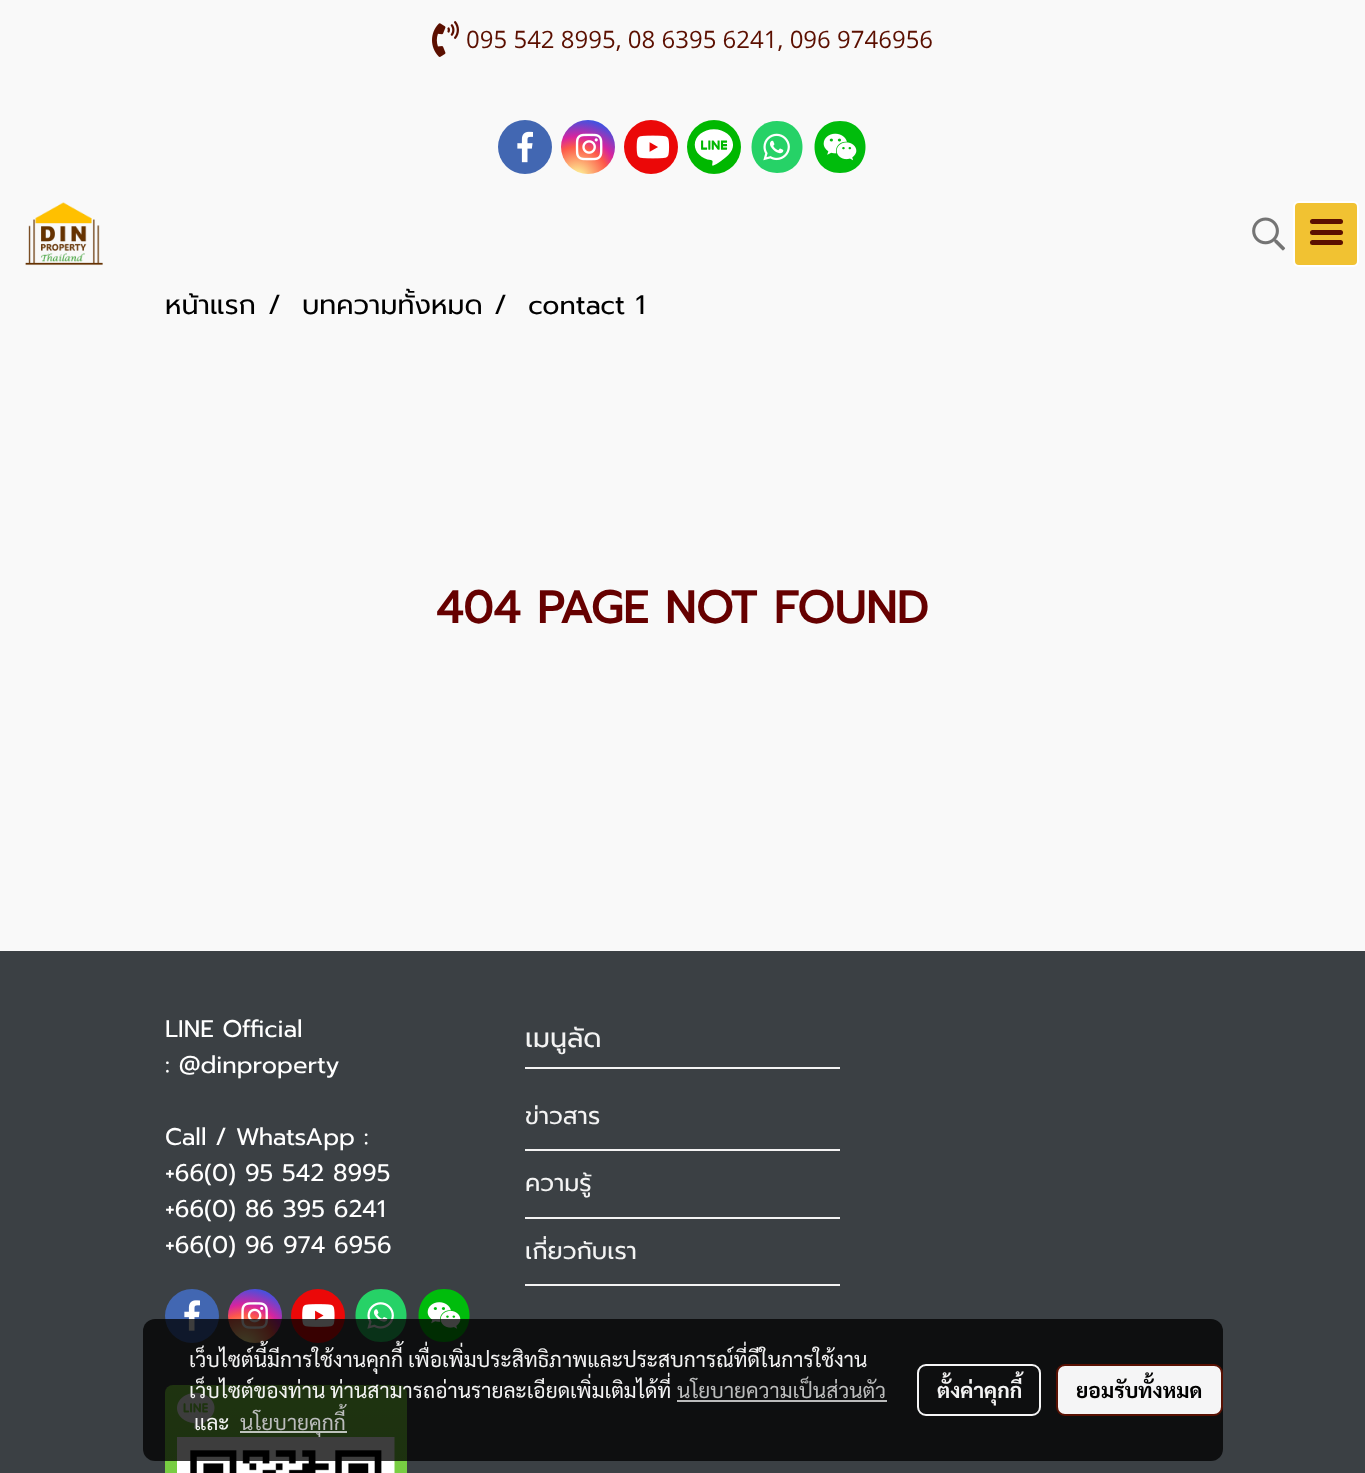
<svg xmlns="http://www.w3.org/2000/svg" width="1365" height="1473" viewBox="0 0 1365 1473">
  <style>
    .t1 { font: 24px Open Sans; fill: #5b0f00; }
    .t2 { font: 27px Prompt; fill: #000; }
    .t3 { font: bold 45px Prompt; fill: #600; }
    .t4 { font: 24px Prompt; fill: #fff; }
    .t5 { font: 27px Prompt; fill: #f3f3f3; }
    .t6 { font: 24px Prompt; fill: #f3f3f3; }
    .t7 { font: 21px Sarabun; fill: #f3f3f3; }
    .t8 { font: 21px Sarabun; fill: #bbbcbc; }
    .t9 { font: bold 21px Sarabun; fill: #f3f3f3; }
    .t10 { font: bold 21px Sarabun; fill: #000; }
  </style>
  <defs>
    <radialGradient id="g1" gradientUnits="userSpaceOnUse" cx="577" cy="178" r="69"><stop offset="0" stop-color="#fdf497"/><stop offset="0.05" stop-color="#fdf497"/><stop offset="0.45" stop-color="#fd5949"/><stop offset="0.6" stop-color="#d6249f"/><stop offset="0.9" stop-color="#285aeb"/></radialGradient>
    <radialGradient id="g2" gradientUnits="userSpaceOnUse" cx="244" cy="1346" r="69"><stop offset="0" stop-color="#fdf497"/><stop offset="0.05" stop-color="#fdf497"/><stop offset="0.45" stop-color="#fd5949"/><stop offset="0.6" stop-color="#d6249f"/><stop offset="0.9" stop-color="#285aeb"/></radialGradient>
    <linearGradient id="g3" gradientUnits="userSpaceOnUse" x1="286" y1="1385" x2="286" y2="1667"><stop offset="0" stop-color="#80d544"/><stop offset="1" stop-color="#65bc3e"/></linearGradient>
  </defs>
  <rect width="100%" height="100%" fill="#f9f9f9"/>
  <image x="432" y="21" width="27" height="36" href="images/1.png"/>
  <text x="466" y="48" class="t1">095 542 8995, 08 6395 6241, 096 9746956</text>
  <circle cx="525" cy="147" r="27" fill="#4267b2"/>
  <image x="517" y="131" width="16" height="32" href="images/2.png"/>
  <circle cx="588" cy="147" r="27" fill="url(#g1)"/>
  <image x="575" y="133" width="28" height="28" href="images/3.png"/>
  <circle cx="651" cy="147" r="27" fill="#eb0808"/>
  <image x="636" y="135" width="34" height="24" href="images/4.png"/>
  <circle cx="714" cy="147" r="27" fill="#00b800"/>
  <image x="694" y="120" width="39" height="54" href="images/5.png"/>
  <path d="M777 121C743 121 743 173 777 173C811 173 811 121 777 121Z" fill="#26d267"/>
  <image x="763" y="133" width="27" height="28" href="images/6.png"/>
  <path d="M840 121C806 121 806 173 840 173C874 173 874 121 840 121Z" fill="#00bc0c"/>
  <image x="823" y="133" width="34" height="28" href="images/7.png"/>
  <image x="25" y="202" width="78" height="64" href="images/8.png"/>
  <image x="1252" y="217" width="34" height="34" href="images/9.png"/>
  <rect x="1294" y="202" width="64" height="64" rx="5" fill="#f1c232" stroke="#fff" stroke-width="2"/>
  <rect x="1310" y="230" width="33" height="5" rx="2.5" fill="#5b0f00"/>
  <rect x="1310" y="219" width="33" height="5" rx="2.5" fill="#5b0f00"/>
  <rect x="1310" y="240" width="33" height="5" rx="2.5" fill="#5b0f00"/>
  <text x="165" y="314" class="t2">หน้าแรก</text>
  <text x="268" y="314" class="t2">/</text>
  <text x="302" y="314" class="t2">บทความทั้งหมด</text>
  <text x="494" y="314" class="t2">/</text>
  <text x="528" y="314" class="t2">contact 1</text>
  <text x="436" y="623" class="t3">404 PAGE NOT FOUND</text>
  <rect x="0" y="951" width="1365" height="522" fill="#3b4044"/>
  <text x="165" y="1037" class="t4">LINE Official</text>
  <text x="165" y="1073" class="t4">: @dinproperty</text>
  <text x="165" y="1145" class="t4">Call / WhatsApp :</text>
  <text x="165" y="1181" class="t4">+66(0) 95 542 8995</text>
  <text x="165" y="1217" class="t4">+66(0) 86 395 6241</text>
  <text x="165" y="1253" class="t4">+66(0) 96 974 6956</text>
  <circle cx="192" cy="1316" r="27" fill="#4267b2"/>
  <image x="184" y="1300" width="16" height="31" href="images/10.png"/>
  <circle cx="255" cy="1316" r="27" fill="url(#g2)"/>
  <image x="241" y="1302" width="27" height="27" href="images/11.png"/>
  <circle cx="318" cy="1316" r="27" fill="#eb0808"/>
  <image x="302" y="1304" width="33" height="23" href="images/12.png"/>
  <path d="M381 1289C347 1289 347 1342 381 1342C415 1342 415 1289 381 1289Z" fill="#26d267"/>
  <image x="367" y="1302" width="27" height="27" href="images/13.png"/>
  <path d="M444 1289C410 1289 410 1342 444 1342C478 1342 478 1289 444 1289Z" fill="#00bc0c"/>
  <image x="427" y="1302" width="34" height="27" href="images/14.png"/>
  <rect x="165" y="1385" width="242" height="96" rx="8" fill="url(#g3)"/>
  <image x="177" y="1392" width="38" height="37" href="images/15.png"/>
  <image x="177" y="1437" width="218" height="36" href="images/16.png"/>
  <rect x="525" y="1067" width="315" height="2" fill="#f3f3f3"/>
  <text x="525" y="1047" class="t5">เมนูลัด</text>
  <rect x="525" y="1149" width="315" height="2" fill="#f3f3f3"/>
  <text x="525" y="1124" class="t6">ข่าวสาร</text>
  <rect x="525" y="1217" width="315" height="2" fill="#f3f3f3"/>
  <text x="525" y="1191" class="t6">ความรู้</text>
  <rect x="525" y="1284" width="315" height="2" fill="#f3f3f3"/>
  <text x="525" y="1259" class="t6">เกี่ยวกับเรา</text>
  <rect x="143" y="1319" width="1080" height="142" rx="12" fill="#000000c2"/>
  <text x="189" y="1367" class="t7">เว็บไซต์นี้มีการใช้งานคุกกี้ เพื่อเพิ่มประสิทธิภาพและประสบการณ์ที่ดีในการใช้งาน</text>
  <text x="189" y="1398" class="t7">เว็บไซต์ของท่าน</text>
  <text x="330" y="1398" class="t7">ท่านสามารถอ่านรายละเอียดเพิ่มเติมได้ที่</text>
  <text x="677" y="1398" class="t8">นโยบายความเป็นส่วนตัว</text>
  <rect x="677" y="1400" width="210" height="2" fill="#bbbcbc"/>
  <text x="194" y="1430" class="t7">และ</text>
  <rect x="240" y="1431" width="107" height="2" fill="#bec3bc"/>
  <text x="240" y="1430" class="t8">นโยบายคุกกี้</text>
  <rect x="918" y="1365" width="122" height="50" rx="8" fill="none" stroke="#f5f5f6" stroke-width="2"/>
  <text x="937" y="1398" class="t9">ตั้งค่าคุกกี้</text>
  <rect x="1057" y="1365" width="165" height="50" rx="8" fill="#f5f5f6" stroke="#591103" stroke-width="2"/>
  <text x="1076" y="1398" class="t10">ยอมรับทั้งหมด</text>
</svg>
